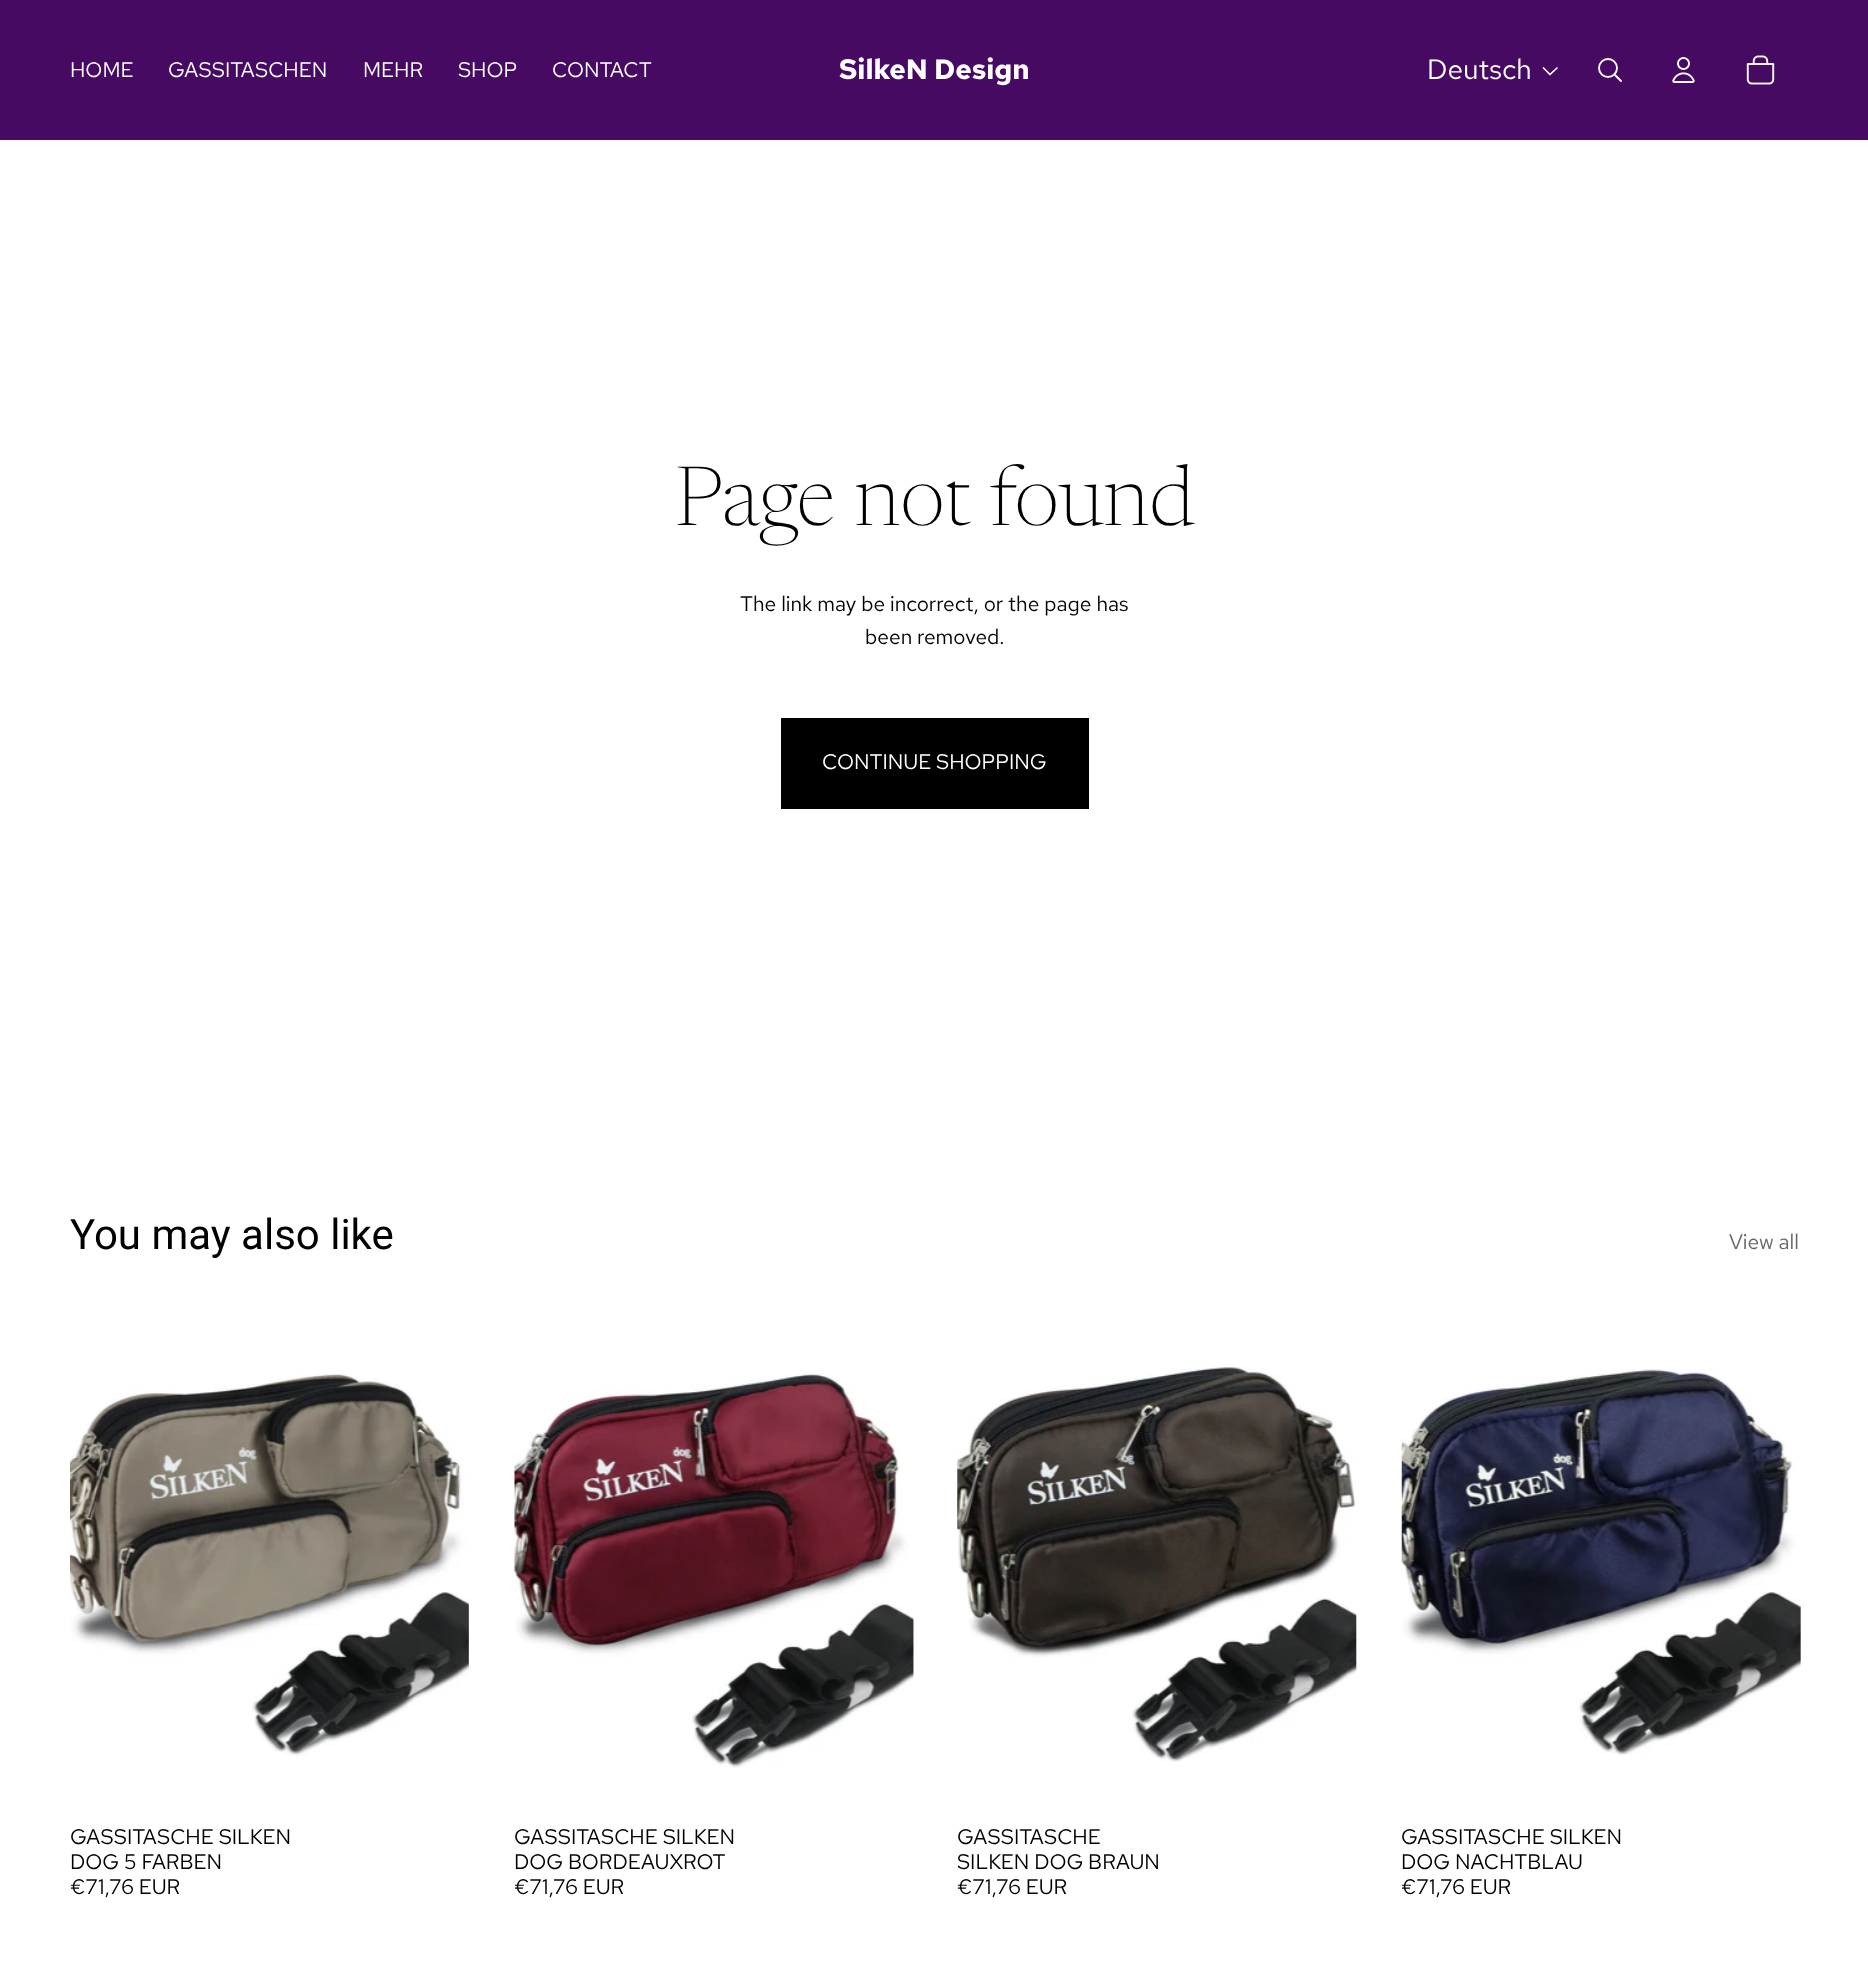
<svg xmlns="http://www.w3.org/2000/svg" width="1868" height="1977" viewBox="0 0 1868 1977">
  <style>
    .t1 { font: 21px Red Hat Text; fill: #fff; }
    .t2 { font: bold 28px Red Hat Text; fill: #fff; }
    .t3 { font: 28px Red Hat Text; fill: #fff; }
    .t4 { font: 200 84px Newsreader; fill: #000; }
    .t5 { font: 21px Red Hat Text; fill: #000; }
    .t6 { font: 42px Roboto; fill: #000; }
    .t7 { font: 21px Red Hat Text; fill: #666; }
  </style>
  <defs>
    <clipPath id="clip1"><rect x="515" y="1309" width="397" height="592"/></clipPath>
    <clipPath id="clip2"><rect x="1402" y="1309" width="397" height="592"/></clipPath>
  </defs>
  <rect width="100%" height="100%" fill="#fff"/>
  <rect x="0" y="0" width="1868" height="140" fill="#470a62"/>
  <text x="70" y="77" class="t1">HOME</text>
  <text x="168" y="77" class="t1">GASSITASCHEN</text>
  <text x="363" y="77" class="t1">MEHR</text>
  <text x="458" y="77" class="t1">SHOP</text>
  <text x="552" y="77" class="t1">CONTACT</text>
  <text x="839" y="79" class="t2">SilkeN Design</text>
  <text x="1427" y="79" class="t3">Deutsch</text>
  <path d="M1557 68L1550 74.5L1543.5 68" fill="none" stroke="#fff" stroke-width="1.7" stroke-linecap="round" stroke-linejoin="round"/>
  <circle cx="1608" cy="68" r="9" fill="none" stroke="#fff" stroke-width="1.9"/>
  <path d="M1615 75L1621 81" fill="none" stroke="#fff" stroke-width="1.9" stroke-linecap="round" stroke-linejoin="round"/>
  <image x="1672" y="57" width="23" height="26" href="images/1.png"/>
  <image x="1746" y="55" width="29" height="30" href="images/2.png"/>
  <text x="675" y="525" class="t4">Page not found</text>
  <text x="740" y="611" class="t5">The link may be incorrect, or the page has</text>
  <text x="865" y="644" class="t5">been removed.</text>
  <rect x="781" y="718" width="308" height="91" fill="#000"/>
  <text x="822" y="769" class="t1">CONTINUE SHOPPING</text>
  <text x="70" y="1249" class="t6">You may also like</text>
  <text x="1729" y="1249" class="t7">View all</text>
  <image x="70" y="1374" width="399" height="382" href="images/3.png"/>
  <text x="70" y="1844" class="t5">GASSITASCHE SILKEN</text>
  <text x="70" y="1869" class="t5">DOG 5 FARBEN</text>
  <text x="70" y="1894" class="t5">€71,76 EUR</text>
  <image x="514" y="1374" width="400" height="394" href="images/4.png"/>
  <g clip-path="url(#clip1)">
    <text x="514" y="1844" class="t5">GASSITASCHE SILKEN</text>
  </g>
  <text x="514" y="1869" class="t5">DOG BORDEAUXROT</text>
  <g clip-path="url(#clip1)">
    <text x="514" y="1894" class="t5">€71,76 EUR</text>
  </g>
  <image x="957" y="1365" width="400" height="397" href="images/5.png"/>
  <text x="957" y="1844" class="t5">GASSITASCHE</text>
  <text x="957" y="1869" class="t5">SILKEN DOG BRAUN</text>
  <text x="957" y="1894" class="t5">€71,76 EUR</text>
  <image x="1401" y="1369" width="400" height="386" href="images/6.png"/>
  <text x="1401" y="1844" class="t5">GASSITASCHE SILKEN</text>
  <text x="1401" y="1869" class="t5">DOG NACHTBLAU</text>
  <g clip-path="url(#clip2)">
    <text x="1401" y="1894" class="t5">€71,76 EUR</text>
  </g>
</svg>
